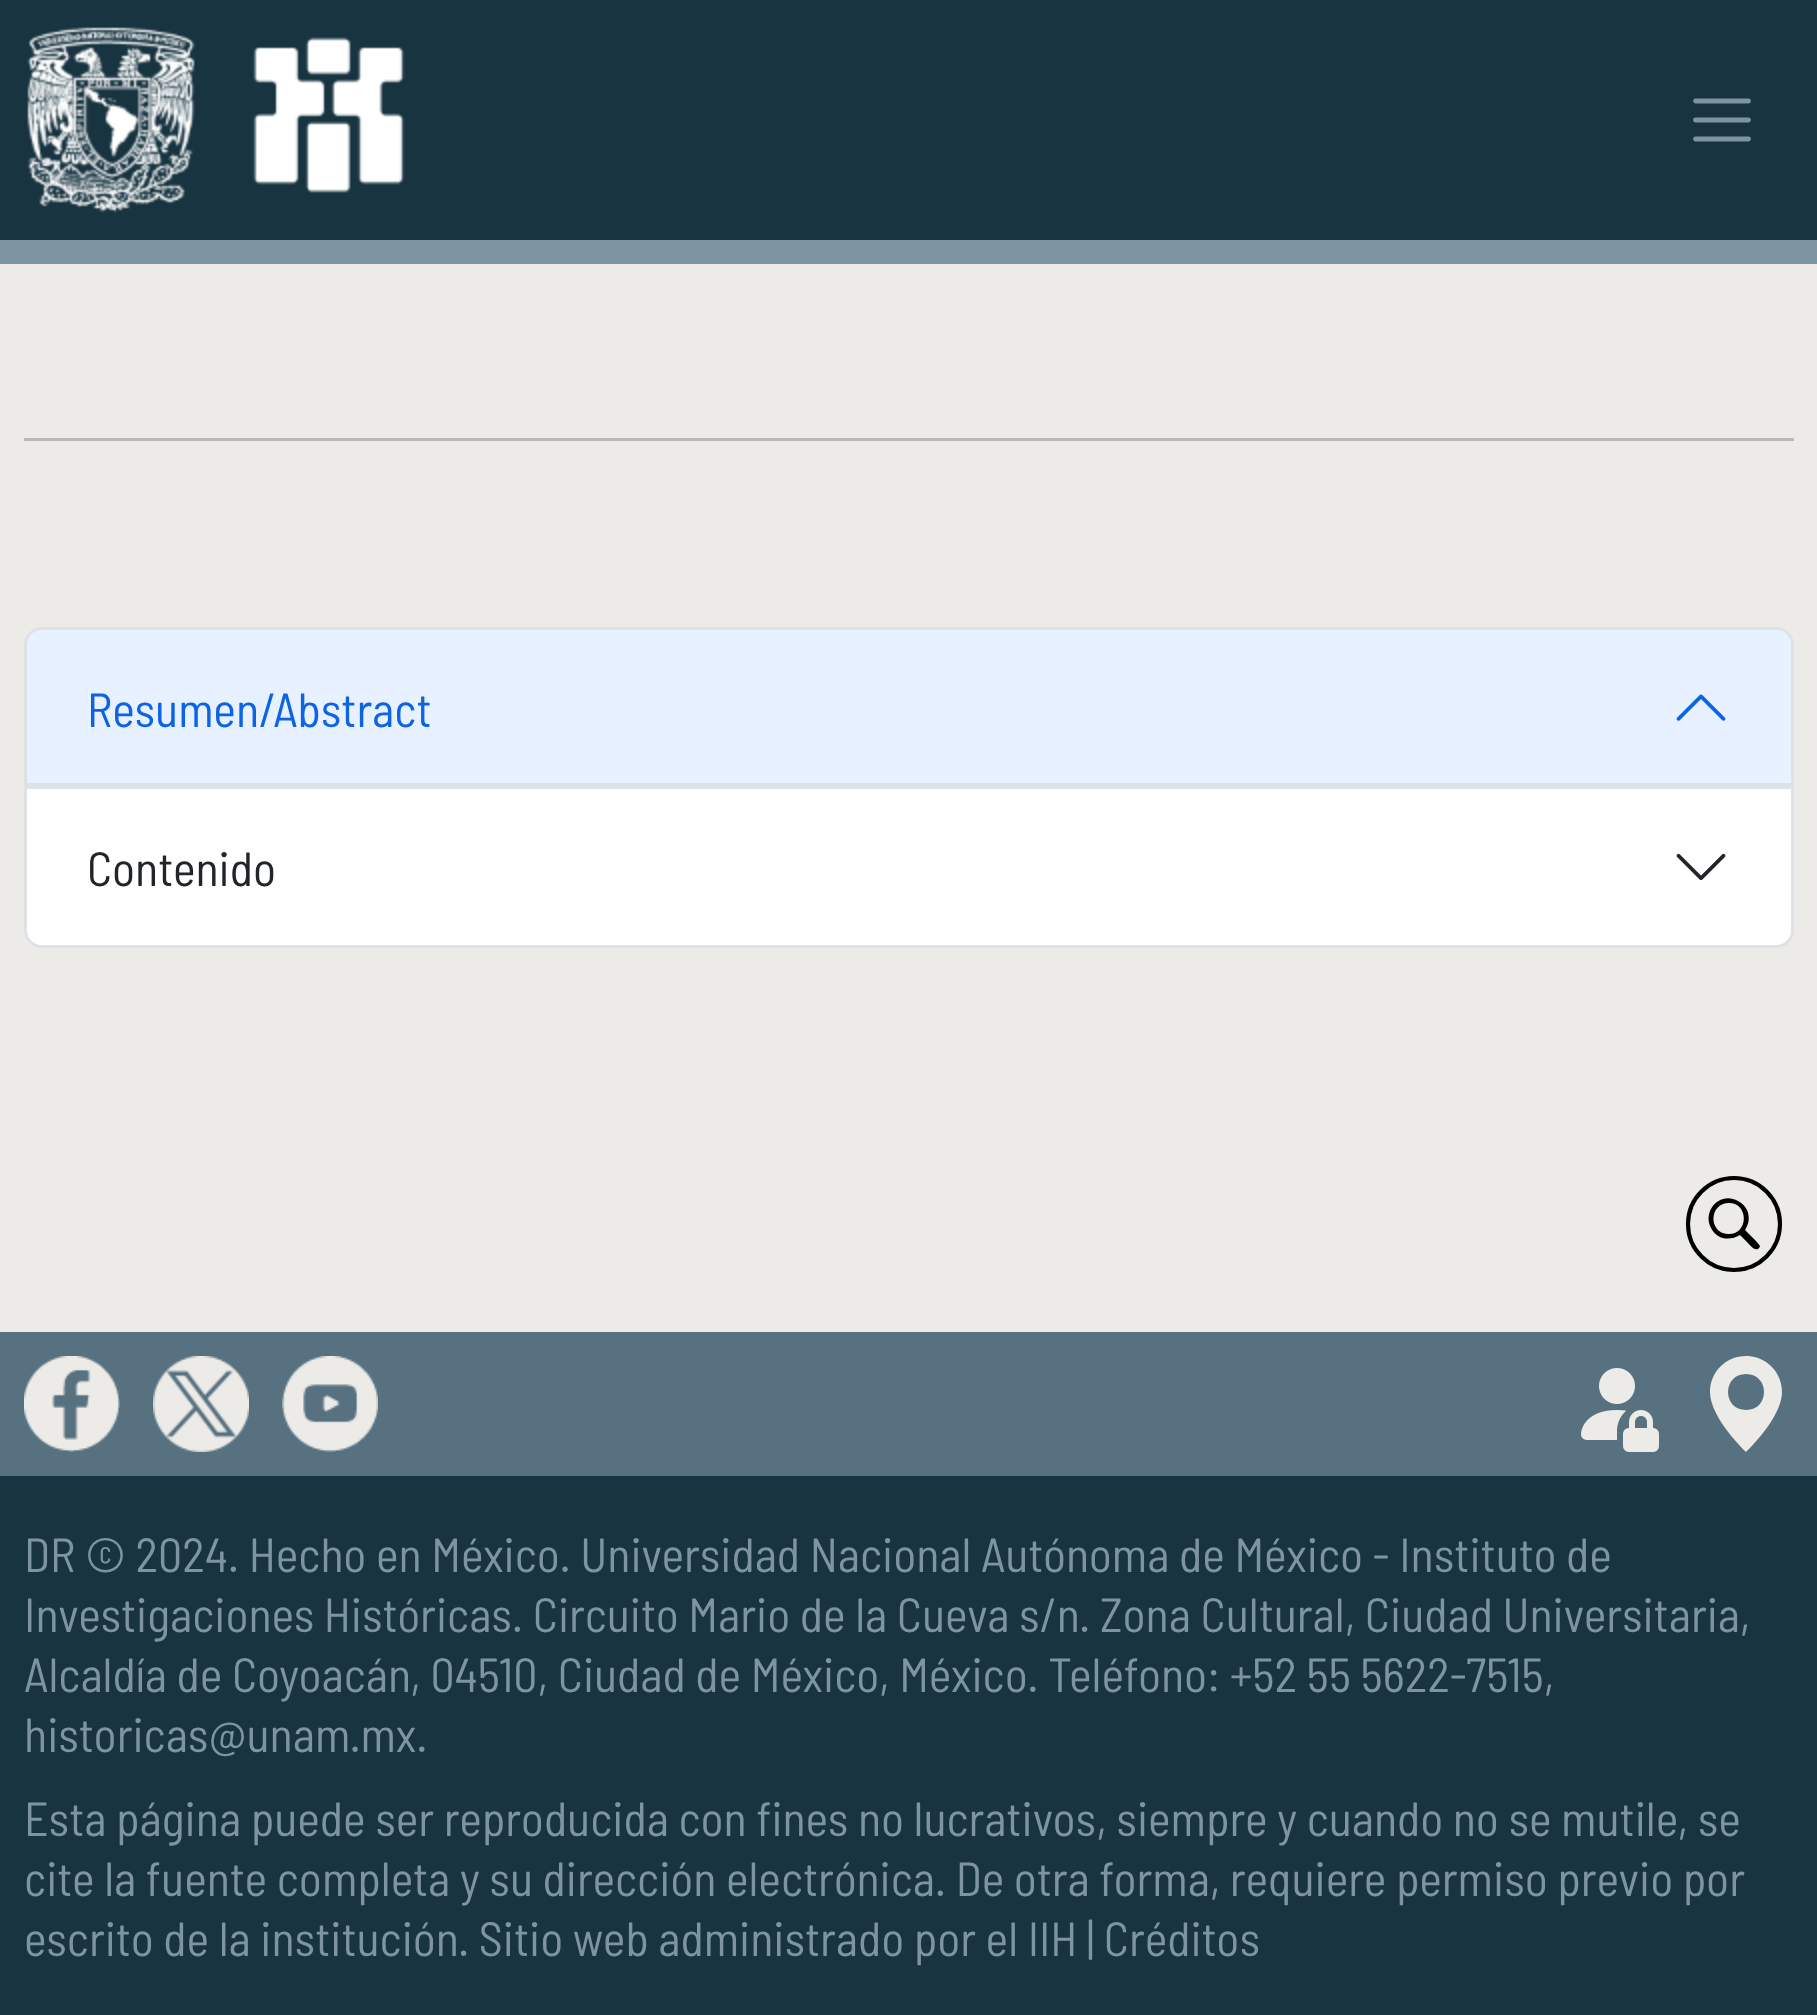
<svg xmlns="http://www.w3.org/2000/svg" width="1817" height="2015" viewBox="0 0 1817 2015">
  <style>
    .t1 { font: 48px Barlow Semi Condensed; fill: #0c63e4; }
    .t2 { font: 48px Barlow Semi Condensed; fill: #212529; }
    .t3 { font: 48px Barlow Semi Condensed; fill: #7e94a2; }
  </style>
  <rect width="100%" height="100%" fill="#7e94a2"/>
  <rect x="0" y="0" width="1817" height="240" fill="#183441"/>
  <image x="27" y="27" width="168" height="186" href="images/1.png"/>
  <image x="253" y="37" width="152" height="156" href="images/2.png"/>
  <path d="M1695.5 101H1748.5M1695.5 120H1748.5M1695.5 139H1748.5" fill="none" stroke="#7e94a2" stroke-width="4.8" stroke-linecap="round"/>
  <rect x="0" y="264" width="1817" height="1068" fill="#ecebe7"/>
  <rect x="24" y="438" width="1770" height="3" fill="#b9bab8"/>
  <path d="M42 628.5H1776C1785 628.5 1792.5 636 1792.5 645V787.5H25.5V645C25.5 636 33 628.5 42 628.5Z" fill="none" stroke="#dee2e6" stroke-width="3"/>
  <path d="M42 630H1776C1784.5 630 1791 636.5 1791 645V786H27V645C27 636.5 33.5 630 42 630Z" fill="#e7f1ff"/>
  <rect x="27" y="783" width="1764" height="3" fill="#dee2e6"/>
  <text x="87" y="727" class="t1">Resumen/Abstract</text>
  <image x="1676" y="694" width="50" height="27" href="images/3.png"/>
  <path d="M24 789H1794V930C1794 940 1786 948 1776 948H42C32 948 24 940 24 930ZM27 789H1791V930C1791 938 1784 945 1776 945H42C34 945 27 938 27 930Z" fill="#dee2e6" fill-rule="evenodd"/>
  <path d="M27 789H1791V930C1791 938.5 1784.5 945 1776 945H42C33.5 945 27 938.5 27 930Z" fill="#fff"/>
  <text x="87" y="886" class="t2">Contenido</text>
  <image x="1676" y="853" width="50" height="28" href="images/4.png"/>
  <path d="M1760 1246C1760 1247 1759 1248 1758 1249C1754 1251 1749 1244 1747 1242L1740 1235C1730 1241 1717 1240 1711 1228C1702 1211 1720 1191 1738 1201C1742 1203 1745 1206 1747 1210C1750 1217 1749 1224 1745 1230L1754 1239C1756 1241 1758 1243 1760 1246ZM1729 1203C1709 1203 1708 1233 1728 1234C1749 1235 1749 1203 1729 1203Z" fill="#000"/>
  <circle cx="1734" cy="1224" r="46" fill="none" stroke="#000" stroke-width="4.1"/>
  <rect x="0" y="1332" width="1817" height="144" fill="#577181"/>
  <image x="24" y="1356" width="96" height="96" href="images/5.png"/>
  <image x="153" y="1356" width="96" height="96" href="images/6.png"/>
  <image x="282" y="1356" width="96" height="96" href="images/7.png"/>
  <image x="1581" y="1368" width="78" height="84" href="images/8.png"/>
  <path d="M1746 1452C1746 1452 1782 1418 1782 1392C1782 1372 1766 1356 1746 1356C1726 1356 1710 1372 1710 1392C1710 1418 1746 1452 1746 1452ZM1746 1410C1722 1410 1722 1374 1746 1374C1770 1374 1770 1410 1746 1410Z" fill="#ecebe7"/>
  <rect x="0" y="1476" width="1817" height="539" fill="#183441"/>
  <text x="24" y="1572" class="t3">DR © 2024. Hecho en México. Universidad Nacional Autónoma de México - Instituto de</text>
  <text x="24" y="1632" class="t3">Investigaciones Históricas. Circuito Mario de la Cueva s/n. Zona Cultural, Ciudad Universitaria,</text>
  <text x="24" y="1692" class="t3">Alcaldía de Coyoacán, 04510, Ciudad de México, México. Teléfono: +52 55 5622-7515,</text>
  <text x="24" y="1752" class="t3">historicas@unam.mx.</text>
  <text x="24" y="1836" class="t3">Esta página puede ser reproducida con fines no lucrativos, siempre y cuando no se mutile, se</text>
  <text x="24" y="1896" class="t3">cite la fuente completa y su dirección electrónica. De otra forma, requiere permiso previo por</text>
  <text x="24" y="1956" class="t3">escrito de la institución. Sitio web administrado por el IIH | Créditos</text>
</svg>
